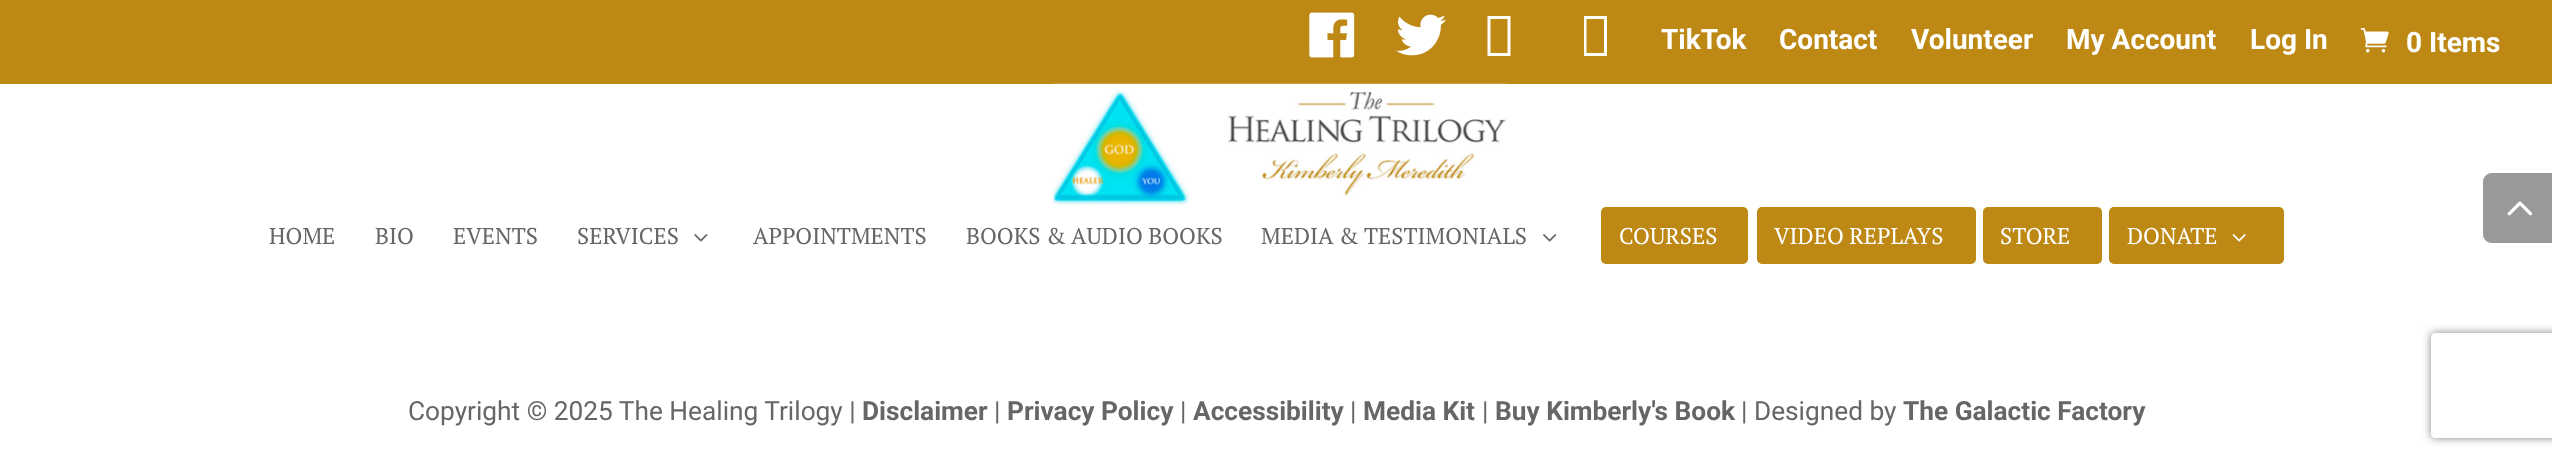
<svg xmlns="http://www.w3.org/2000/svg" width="2552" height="461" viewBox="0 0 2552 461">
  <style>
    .t1 { font: bold 28px Roboto; fill: #fff; }
    .t2 { font: 22.75px PT Serif; fill: #666; }
    .t3 { font: 22.75px PT Serif; fill: #fff; }
    .t4 { font: 26.25px Roboto; fill: #666; }
    .t5 { font: bold 26.25px Roboto; fill: #666; }
  </style>
  <defs>
    <clipPath id="clip1"><path d="M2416 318H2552V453H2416ZM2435 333H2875C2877 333 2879 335 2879 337V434C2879 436 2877 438 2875 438H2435C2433 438 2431 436 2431 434V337C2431 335 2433 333 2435 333Z" clip-rule="evenodd"/></clipPath>
  </defs>
  <rect width="100%" height="100%" fill="#fff"/>
  <rect x="0" y="0" width="2552" height="84" fill="#bd8813"/>
  <image x="1309" y="12" width="46" height="46" href="images/1.png"/>
  <image x="1396" y="14" width="50" height="42" href="images/2.png"/>
  <path d="M1487.5 56V16H1510.5V56ZM1490.5 53H1507.5V19H1490.5Z" fill="#fff"/>
  <path d="M1584 56V16H1607V56ZM1586.5 53H1604V19H1586.5Z" fill="#fff"/>
  <text x="1661" y="49" class="t1">TikTok</text>
  <text x="1779" y="49" class="t1">Contact</text>
  <text x="1911" y="49" class="t1">Volunteer</text>
  <text x="2066" y="49" class="t1">My Account</text>
  <text x="2250" y="49" class="t1">Log In</text>
  <image x="2360" y="28" width="29" height="25" href="images/3.png"/>
  <text x="2406" y="52" class="t1">0 Items</text>
  <image x="1052" y="83" width="455" height="123" href="images/4.png"/>
  <text x="269" y="244" class="t2">HOME</text>
  <text x="375" y="244" class="t2">BIO</text>
  <text x="453" y="244" class="t2">EVENTS</text>
  <text x="577" y="244" class="t2">SERVICES</text>
  <image x="694" y="234" width="14" height="8" href="images/5.png"/>
  <text x="753" y="244" class="t2">APPOINTMENTS</text>
  <text x="966" y="244" class="t2">BOOKS &amp; AUDIO BOOKS</text>
  <text x="1261" y="244" class="t2">MEDIA &amp; TESTIMONIALS</text>
  <image x="1543" y="234" width="14" height="8" href="images/6.png"/>
  <rect x="1601" y="207" width="147" height="57" rx="5" fill="#bd8813"/>
  <text x="1619" y="244" class="t3">COURSES</text>
  <rect x="1757" y="207" width="219" height="57" rx="5" fill="#bd8813"/>
  <text x="1774" y="244" class="t3">VIDEO REPLAYS</text>
  <rect x="1983" y="207" width="119" height="57" rx="5" fill="#bd8813"/>
  <text x="2000" y="244" class="t3">STORE</text>
  <rect x="2109" y="207" width="175" height="57" rx="5" fill="#bd8813"/>
  <text x="2127" y="244" class="t3">DONATE</text>
  <image x="2232" y="234" width="14" height="8" href="images/7.png"/>
  <path d="M2492 173H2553V243H2492C2487 243 2483 239 2483 234V182C2483 177 2487 173 2492 173Z" fill="#999"/>
  <image x="2507" y="201" width="26" height="15" href="images/8.png"/>
  <text x="408" y="420" class="t4">Copyright © 2025 The Healing Trilogy |</text>
  <text x="862" y="420" class="t5">Disclaimer</text>
  <text x="994" y="420" class="t4">|</text>
  <text x="1007" y="420" class="t5">Privacy Policy</text>
  <text x="1180" y="420" class="t4">|</text>
  <text x="1193" y="420" class="t5">Accessibility</text>
  <text x="1350" y="420" class="t4">|</text>
  <text x="1363" y="420" class="t5">Media Kit</text>
  <text x="1482" y="420" class="t4">|</text>
  <text x="1495" y="420" class="t5">Buy Kimberly's Book</text>
  <text x="1741" y="420" class="t4">| Designed by</text>
  <text x="1903" y="420" class="t5">The Galactic Factory</text>
  <g clip-path="url(#clip1)">
    <rect x="2431" y="333" width="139" height="105" rx="4" fill="#808080" filter="blur(4.5px)"/>
  </g>
</svg>
